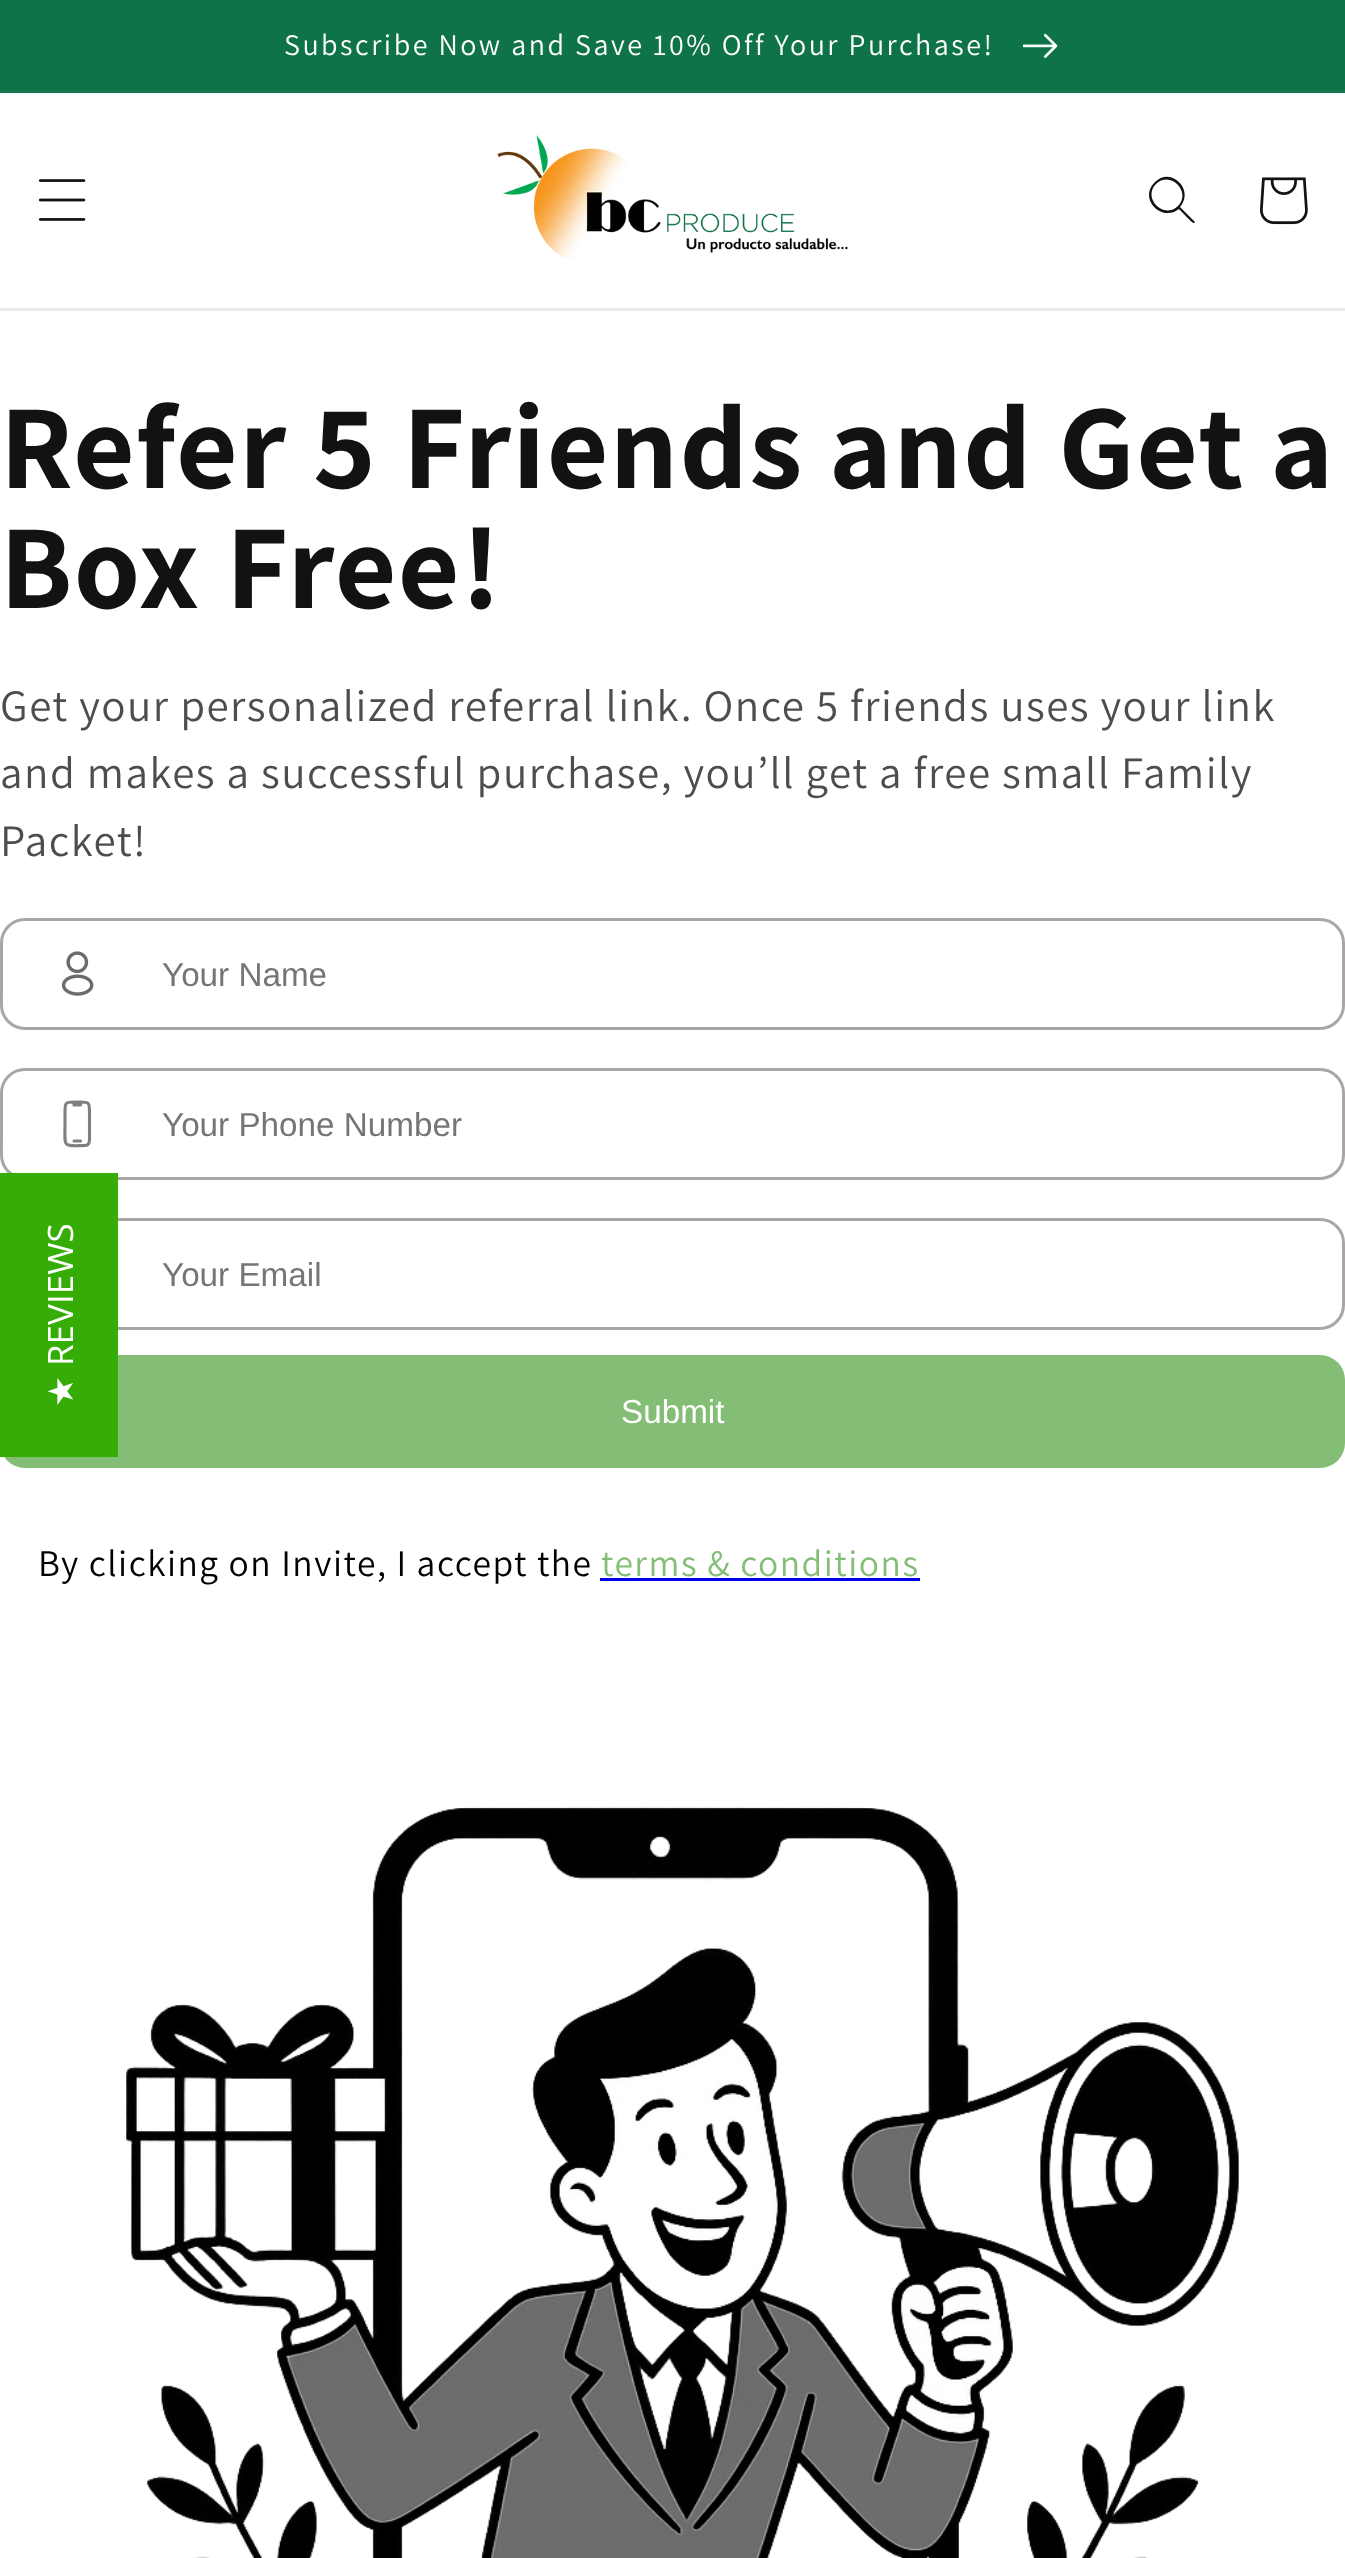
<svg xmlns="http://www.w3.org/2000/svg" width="1345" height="2558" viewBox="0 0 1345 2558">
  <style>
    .t1 { font: 30px Assistant; letter-spacing: 2.5px; fill: #fff; }
    .t2 { font: bold 120px Assistant; letter-spacing: 1.5px; fill: #121212; }
    .t3 { font: 45px Assistant; letter-spacing: 1.5px; fill: #4d4d4d; }
    .t4 { font: 33.25px Liberation Sans; fill: #757575; }
    .t5 { font: 33.25px Liberation Sans; fill: #fff; }
    .t6 { font: 37.5px Assistant; letter-spacing: 1.5px; fill: #000; }
    .t7 { font: 37.5px Assistant; letter-spacing: 1.5px; fill: #84bd75; }
    .t8 { font: 35px Open Sans; fill: #fff; }
    .t9 { font: 35px DejaVu Sans; fill: #fff; }
  </style>
  <rect width="100%" height="100%" fill="#fff"/>
  <rect x="0" y="90" width="1345" height="3" fill="#14764c"/>
  <rect x="0" y="0" width="1345" height="90" fill="#0f7348"/>
  <text x="284" y="55" class="t1">Subscribe Now and Save 10% Off Your Purchase!</text>
  <image x="1023" y="33" width="35" height="25" href="images/1.png"/>
  <rect x="0" y="308" width="1345" height="3" fill="#ececec"/>
  <image x="38" y="179" width="48" height="42" href="images/2.png"/>
  <image x="497" y="135" width="351" height="125" href="images/3.png"/>
  <path d="M1178 206C1164 220 1142 198 1156 184C1170 170 1192 192 1178 206ZM1179 209C1161 223 1138 198 1155 182C1171 166 1195 190 1180 207L1195 222L1194 223C1193 224 1181 211 1179 209Z" fill="#121212" fill-rule="evenodd"/>
  <image x="1260" y="177" width="48" height="48" href="images/4.png"/>
  <text x="0" y="488" class="t2">Refer 5 Friends and Get a</text>
  <text x="0" y="608" class="t2">Box Free!</text>
  <text x="0" y="721" class="t3">Get your personalized referral link. Once 5 friends uses your link</text>
  <text x="0" y="788" class="t3">and makes a successful purchase, you’ll get a free small Family</text>
  <text x="0" y="856" class="t3">Packet!</text>
  <rect x="1.5" y="919.5" width="1342" height="109" rx="23.5" fill="none" stroke="#aba6a6" stroke-width="3"/>
  <image x="61" y="951" width="33" height="45" href="images/5.png"/>
  <text x="162" y="986" class="t4">Your Name</text>
  <rect x="1.5" y="1069.5" width="1342" height="109" rx="23.5" fill="none" stroke="#aba6a6" stroke-width="3"/>
  <path d="M74 1102C65 1102 65 1103 65 1112.5V1124C65 1148 62 1146 85 1145.5C90.5 1145.5 89.5 1139 89.5 1135V1112.5C89.5 1103 89.5 1102 80.5 1102M74 1102V1105H80.5V1102M74 1102H80.5M74 1141H80.5" fill="none" stroke="#808080" stroke-width="3.1" stroke-linecap="round" stroke-linejoin="round"/>
  <text x="162" y="1136" class="t4">Your Phone Number</text>
  <rect x="1.5" y="1219.5" width="1342" height="109" rx="23.5" fill="none" stroke="#aba6a6" stroke-width="3"/>
  <text x="162" y="1286" class="t4">Your Email</text>
  <rect x="0" y="1355" width="1345" height="113" rx="25" fill="#84bd75"/>
  <text x="621" y="1423" class="t5">Submit</text>
  <text x="38" y="1576" class="t6">By clicking on Invite, I accept the</text>
  <text x="601" y="1576" class="t7">terms &amp; conditions</text>
  <rect x="600" y="1578" width="320" height="3" fill="#00e"/>
  <image x="126" y="1806" width="1114" height="752" href="images/6.png"/>
  <rect x="0" y="1173" width="118" height="284" fill="#36ad07"/>
  <text x="73" y="1366" transform="rotate(-90 73 1366)" class="t8">REVIEWS</text>
  <text x="73" y="1407" transform="rotate(-90 73 1407)" class="t9">★</text>
</svg>
